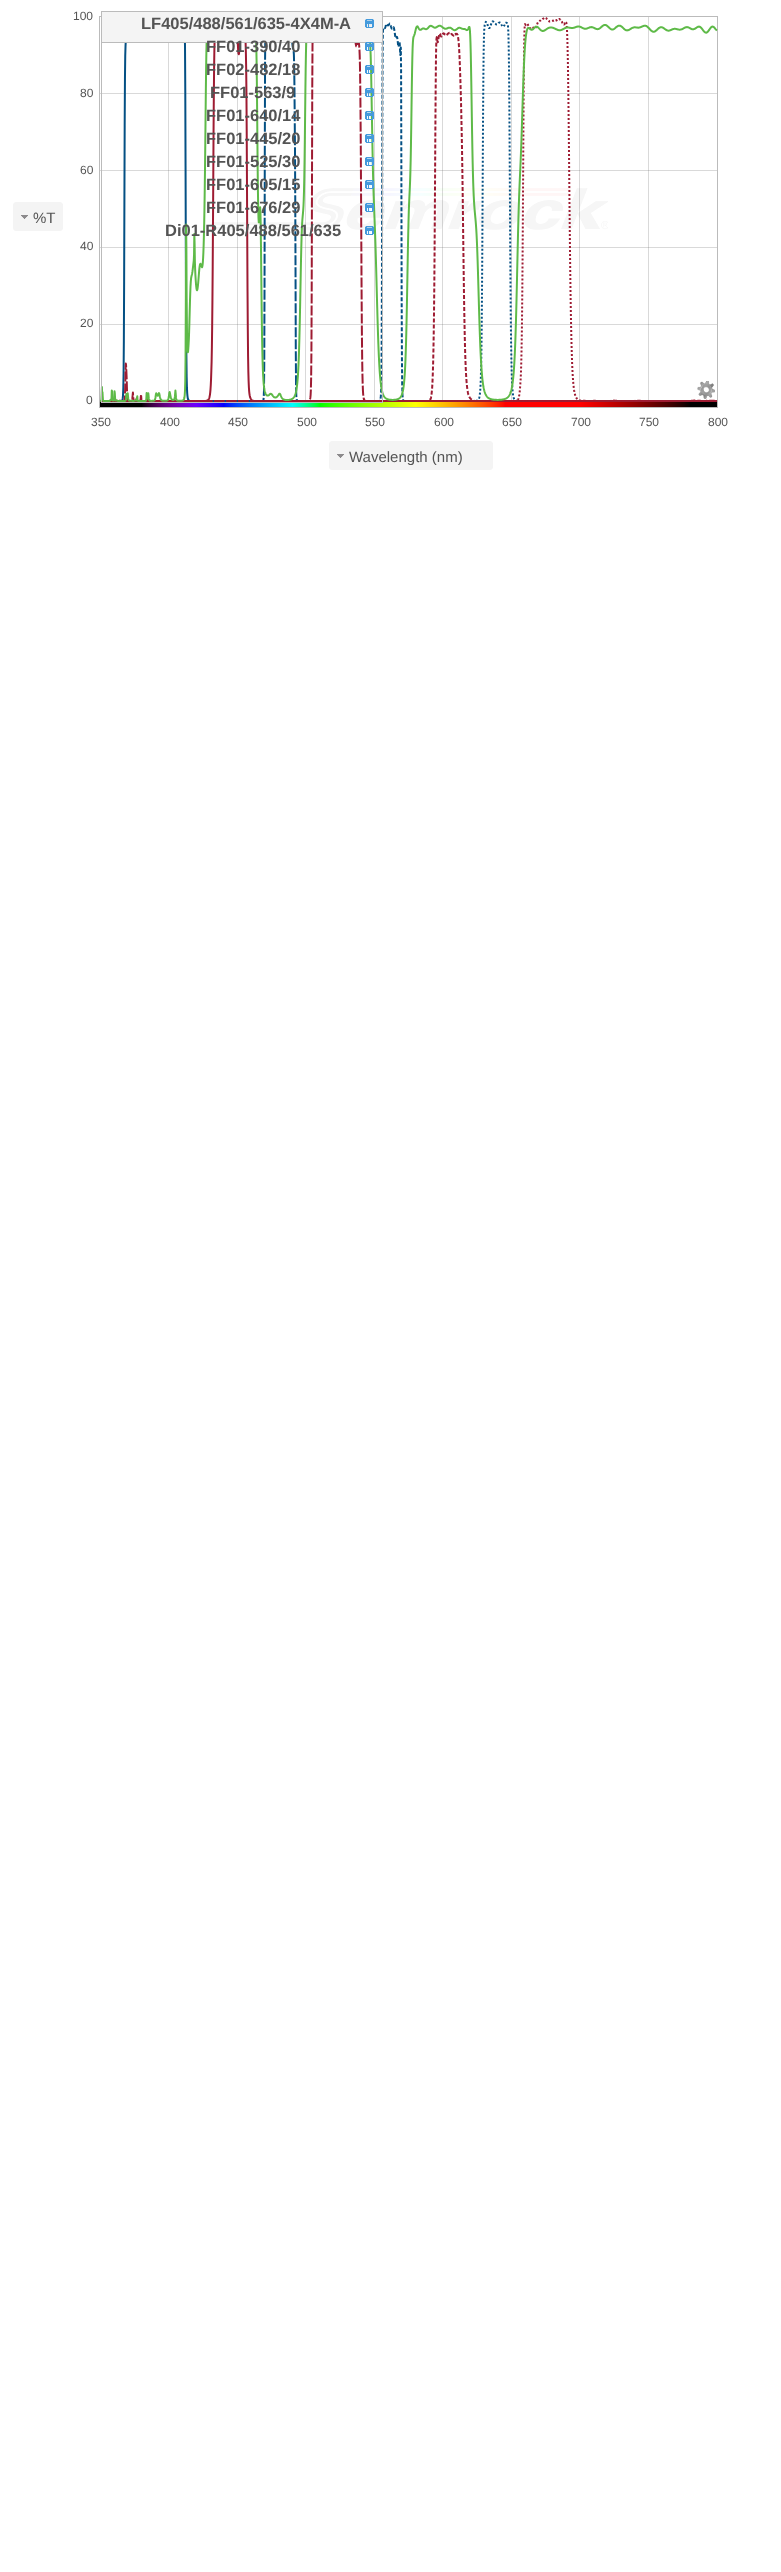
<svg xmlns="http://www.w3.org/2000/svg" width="781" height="2572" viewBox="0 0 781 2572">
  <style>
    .t1 { font: 15px Liberation Sans; fill: #545454; }
    .t2 { font: 12px Liberation Sans; fill: #545454; }
    .t3 { font: bold 16.5px Liberation Sans; fill: #545454; }
  </style>
  <rect width="100%" height="100%" fill="#fff"/>
  <rect x="13.5" y="202.5" width="49" height="28" rx="2.5" fill="#f4f4f4" stroke="#f4f4f4"/>
  <image x="21" y="215" width="7" height="4" href="images/1.png"/>
  <text x="33" y="223" class="t1">%T</text>
  <text x="73" y="20" class="t2">100</text>
  <text x="80" y="97" class="t2">80</text>
  <text x="80" y="174" class="t2">60</text>
  <text x="80" y="250" class="t2">40</text>
  <text x="80" y="327" class="t2">20</text>
  <text x="86" y="404" class="t2">0</text>
  <text x="91" y="426" class="t2">350</text>
  <text x="160" y="426" class="t2">400</text>
  <text x="228" y="426" class="t2">450</text>
  <text x="297" y="426" class="t2">500</text>
  <text x="365" y="426" class="t2">550</text>
  <text x="434" y="426" class="t2">600</text>
  <text x="502" y="426" class="t2">650</text>
  <text x="571" y="426" class="t2">700</text>
  <text x="639" y="426" class="t2">750</text>
  <text x="708" y="426" class="t2">800</text>
  <image x="209" y="188" width="399" height="42" href="images/3.png"/>
  <image x="99" y="16" width="619" height="392" href="images/2.png"/>
  <image x="697" y="381" width="18" height="18" href="images/4.png"/>
  <rect x="101.5" y="11.5" width="281" height="391" fill="none" stroke="#bbb"/>
  <rect x="102" y="12" width="280" height="30" fill="#f4f4f4"/>
  <rect x="102" y="42" width="280" height="1" fill="#bbb"/>
  <text x="141" y="29" class="t3">LF405/488/561/635-4X4M-A</text>
  <image x="365" y="19" width="9" height="9" href="images/5.png"/>
  <text x="206" y="52" class="t3">FF01-390/40</text>
  <image x="365" y="42" width="9" height="9" href="images/6.png"/>
  <text x="206" y="75" class="t3">FF02-482/18</text>
  <image x="365" y="65" width="9" height="9" href="images/7.png"/>
  <text x="210" y="98" class="t3">FF01-563/9</text>
  <image x="365" y="88" width="9" height="9" href="images/8.png"/>
  <text x="206" y="121" class="t3">FF01-640/14</text>
  <image x="365" y="111" width="9" height="9" href="images/9.png"/>
  <text x="206" y="144" class="t3">FF01-445/20</text>
  <image x="365" y="134" width="9" height="9" href="images/10.png"/>
  <text x="206" y="167" class="t3">FF01-525/30</text>
  <image x="365" y="157" width="9" height="9" href="images/11.png"/>
  <text x="206" y="190" class="t3">FF01-605/15</text>
  <image x="365" y="180" width="9" height="9" href="images/12.png"/>
  <text x="206" y="213" class="t3">FF01-676/29</text>
  <image x="365" y="203" width="9" height="9" href="images/13.png"/>
  <text x="165" y="236" class="t3">Di01-R405/488/561/635</text>
  <image x="365" y="226" width="9" height="9" href="images/14.png"/>
  <rect x="329.5" y="441.5" width="163" height="28" rx="2.5" fill="#f4f4f4" stroke="#f4f4f4"/>
  <image x="337" y="454" width="7" height="4" href="images/1.png"/>
  <text x="349" y="462" class="t1">Wavelength (nm)</text>
</svg>
